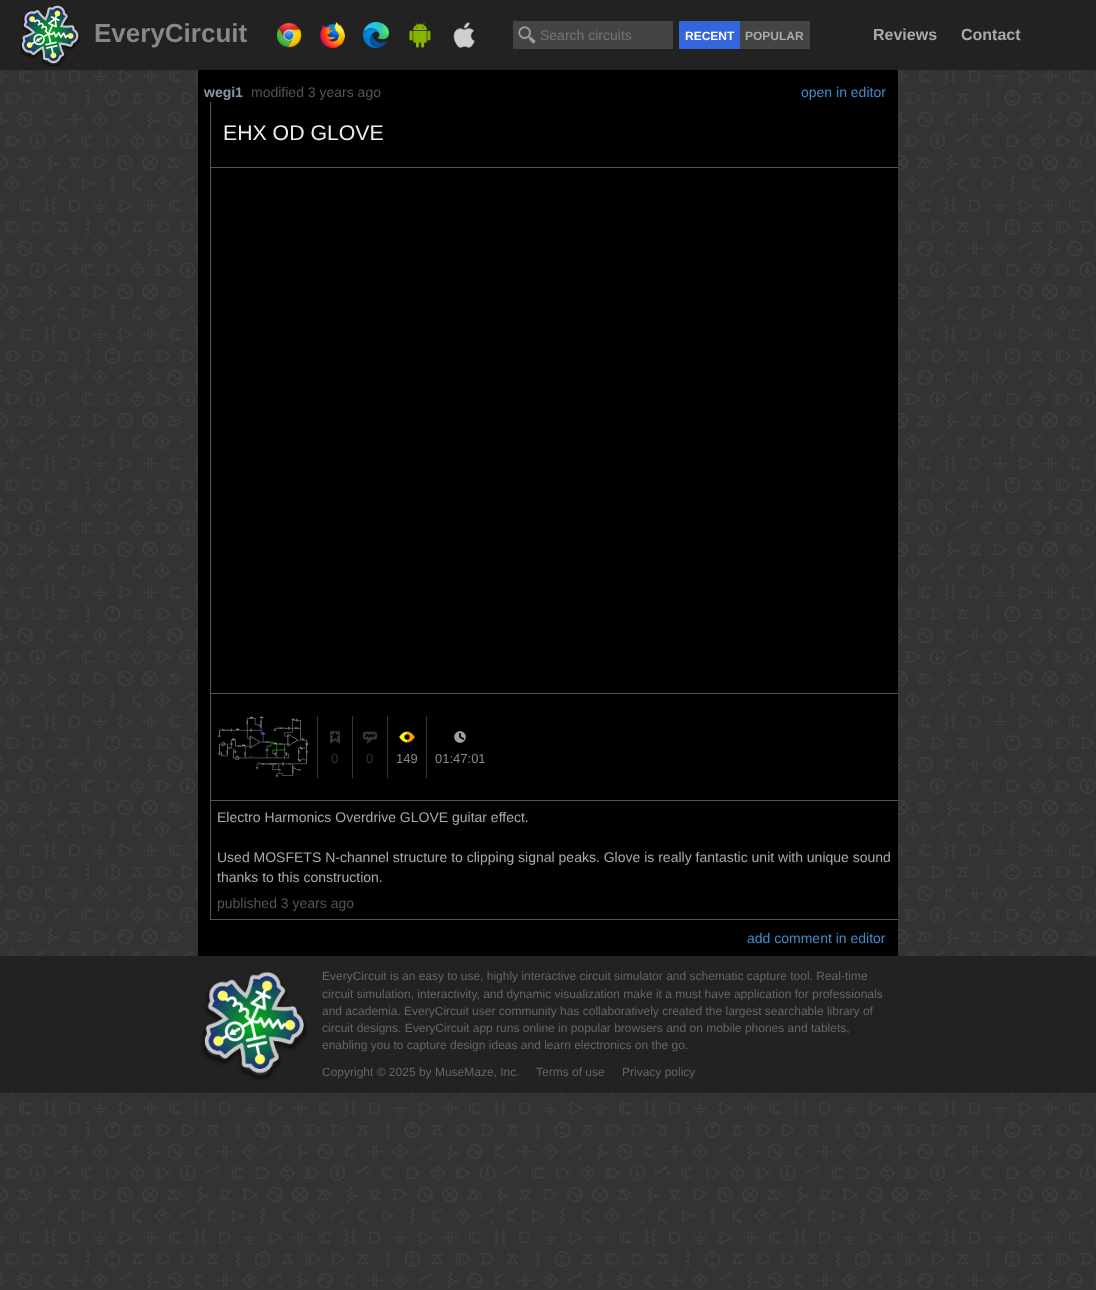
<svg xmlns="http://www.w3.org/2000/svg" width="1096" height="1290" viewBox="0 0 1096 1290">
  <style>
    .t1 { font: bold 26px Liberation Sans; fill: #888; }
    .t2 { font: 14px Liberation Sans; fill: #757575; }
    .t3 { font: bold 12px Liberation Sans; fill: #fff; }
    .t4 { font: bold 12px Liberation Sans; fill: #aaa; }
    .t5 { font: bold 16px Liberation Sans; fill: #aaa; }
    .t6 { font: bold 14px Liberation Sans; fill: #89a; }
    .t7 { font: 14px Liberation Sans; fill: #555; }
    .t8 { font: 14px Liberation Sans; fill: #428bca; }
    .t9 { font: 21.25px Liberation Sans; fill: #eee; }
    .t10 { font: 13px Liberation Sans; fill: #363636; }
    .t11 { font: 13px Liberation Sans; fill: #888; }
    .t12 { font: 14px Liberation Sans; fill: #aaa; }
    .t13 { font: 12px Liberation Sans; fill: #666; }
  </style>
  <rect width="100%" height="100%" fill="#fff"/>
  <image x="0" y="70" width="1096" height="1220" href="images/1.png"/>
  <rect x="0" y="0" width="1096" height="70" fill="#222"/>
  <image x="20" y="5" width="60" height="62" href="images/2.png"/>
  <text x="94" y="42" class="t1">EveryCircuit</text>
  <image x="276" y="22" width="26" height="26" href="images/3.png"/>
  <image x="320" y="22" width="25" height="26" href="images/4.png"/>
  <image x="363" y="22" width="26" height="26" href="images/5.png"/>
  <image x="409" y="22" width="22" height="26" href="images/6.png"/>
  <image x="453" y="22" width="22" height="26" href="images/7.png"/>
  <rect x="513" y="21" width="160" height="28" fill="#444"/>
  <image x="518" y="26" width="18" height="18" href="images/8.png"/>
  <text x="540" y="40" class="t2">Search circuits</text>
  <rect x="679" y="21" width="61" height="28" fill="#36d"/>
  <text x="685" y="40" class="t3">RECENT</text>
  <rect x="740" y="21" width="70" height="28" fill="#444"/>
  <text x="745" y="40" class="t4">POPULAR</text>
  <text x="873" y="40" class="t5">Reviews</text>
  <text x="961" y="40" class="t5">Contact</text>
  <rect x="198" y="70" width="700" height="886" fill="#000"/>
  <text x="204" y="97" class="t6">wegi1</text>
  <text x="251" y="97" class="t7">modified 3 years ago</text>
  <text x="801" y="97" class="t8">open in editor</text>
  <rect x="210" y="102" width="1" height="818" fill="#555"/>
  <text x="223" y="140" class="t9">EHX OD GLOVE</text>
  <rect x="211" y="167" width="687" height="1" fill="#555"/>
  <rect x="211" y="693" width="687" height="1" fill="#555"/>
  <image x="217" y="716" width="92" height="62" href="images/9.png"/>
  <rect x="317" y="716" width="1" height="62" fill="#363636"/>
  <image x="330" y="731" width="10" height="13" href="images/10.png"/>
  <text x="331" y="763" class="t10">0</text>
  <rect x="352" y="716" width="1" height="62" fill="#363636"/>
  <image x="362" y="731" width="16" height="13" href="images/11.png"/>
  <text x="366" y="763" class="t10">0</text>
  <rect x="387" y="716" width="1" height="62" fill="#363636"/>
  <image x="399" y="731" width="16" height="12" href="images/12.png"/>
  <text x="396" y="763" class="t11">149</text>
  <rect x="426" y="716" width="1" height="62" fill="#363636"/>
  <image x="454" y="731" width="12" height="12" href="images/13.png"/>
  <text x="435" y="763" class="t11">01:47:01</text>
  <rect x="211" y="800" width="687" height="1" fill="#555"/>
  <text x="217" y="822" class="t12">Electro Harmonics Overdrive GLOVE guitar effect.</text>
  <text x="217" y="862" class="t12">Used MOSFETS N-channel structure to clipping signal peaks. Glove is really fantastic unit with unique sound</text>
  <text x="217" y="882" class="t12">thanks to this construction.</text>
  <text x="217" y="908" class="t7">published 3 years ago</text>
  <rect x="211" y="919" width="687" height="1" fill="#555"/>
  <text x="747" y="943" class="t8">add comment in editor</text>
  <rect x="0" y="956" width="1096" height="137" fill="#222"/>
  <image x="201" y="972" width="106" height="108" href="images/14.png"/>
  <text x="322" y="980" class="t13">EveryCircuit is an easy to use, highly interactive circuit simulator and schematic capture tool. Real-time</text>
  <text x="322" y="998" class="t13">circuit simulation, interactivity, and dynamic visualization make it a must have application for professionals</text>
  <text x="322" y="1015" class="t13">and academia. EveryCircuit user community has collaboratively created the largest searchable library of</text>
  <text x="322" y="1032" class="t13">circuit designs. EveryCircuit app runs online in popular browsers and on mobile phones and tablets,</text>
  <text x="322" y="1049" class="t13">enabling you to capture design ideas and learn electronics on the go.</text>
  <text x="322" y="1076" class="t13">Copyright © 2025 by MuseMaze, Inc.</text>
  <text x="536" y="1076" class="t13">Terms of use</text>
  <text x="622" y="1076" class="t13">Privacy policy</text>
</svg>
